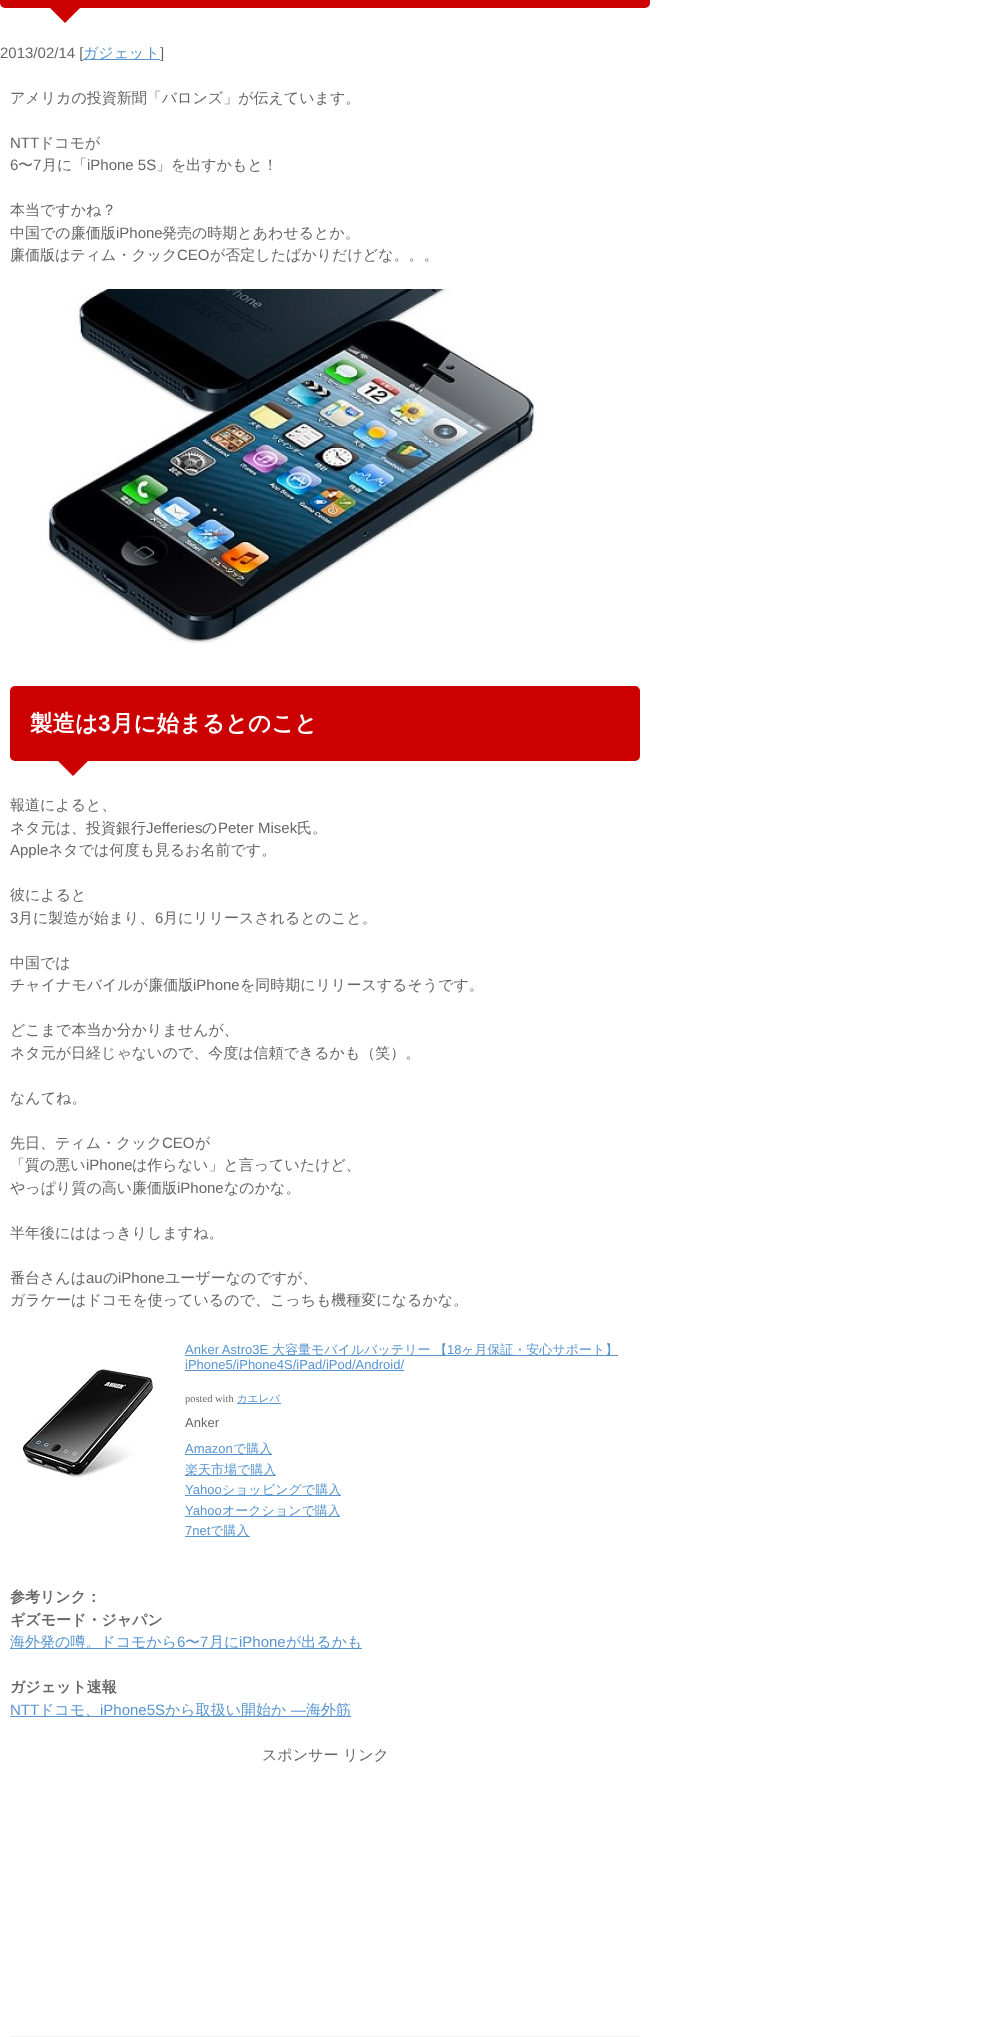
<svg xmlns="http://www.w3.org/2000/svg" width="981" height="2037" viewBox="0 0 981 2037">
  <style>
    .t1 { font: 15px Liberation Sans; fill: #666; }
    .t2 { font: 500 15px WenQuanYi Zen Hei; fill: #5895d0; }
    .t3 { font: 500 15px WenQuanYi Zen Hei; fill: #666; }
    .t4 { font: bold 22.5px WenQuanYi Zen Hei; fill: #fff; }
    .t5 { font: bold 22.5px Liberation Sans; fill: #fff; }
    .t6 { font: 13px Liberation Sans; fill: #5895d0; }
    .t7 { font: 500 13px WenQuanYi Zen Hei; fill: #5895d0; }
    .t8 { font: 10.5px Liberation Serif; fill: #666; }
    .t9 { font: 500 10.5px WenQuanYi Zen Hei; fill: #5895d0; }
    .t10 { font: 13px Liberation Sans; fill: #666; }
    .t11 { font: bold 15px WenQuanYi Zen Hei; fill: #666; }
    .t12 { font: 15px Liberation Sans; fill: #5895d0; }
  </style>
  <rect width="100%" height="100%" fill="#fff"/>
  <rect x="0" y="-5" width="650" height="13" rx="5" fill="#c00"/>
  <path d="M50 8H80L65 23Z" fill="#c00"/>
  <text x="0" y="58" class="t1">2013/02/14 [</text>
  <rect x="83" y="59" width="77" height="1" fill="#5895d0"/>
  <text x="83" y="58" class="t2">ガジェット</text>
  <text x="160" y="58" class="t1">]</text>
  <text x="10" y="103" class="t3">アメリカの投資新聞「バロンズ」が伝えています。</text>
  <text x="10" y="148" class="t1">NTT</text>
  <text x="39" y="148" class="t3">ドコモが</text>
  <text x="10" y="170" class="t1">6</text>
  <text x="18" y="170" class="t3">〜</text>
  <text x="33" y="170" class="t1">7</text>
  <text x="42" y="170" class="t3">月に「</text>
  <text x="87" y="170" class="t1">iPhone 5S</text>
  <text x="156" y="170" class="t3">」を出すかもと！</text>
  <text x="10" y="215" class="t3">本当ですかね？</text>
  <text x="10" y="238" class="t3">中国での廉価版</text>
  <text x="116" y="238" class="t1">iPhone</text>
  <text x="162" y="238" class="t3">発売の時期とあわせるとか。</text>
  <text x="10" y="260" class="t3">廉価版はティム・クック</text>
  <text x="177" y="260" class="t1">CEO</text>
  <text x="210" y="260" class="t3">が否定したばかりだけどな。。。</text>
  <image x="44" y="289" width="494" height="354" href="images/1.png"/>
  <rect x="10" y="686" width="630" height="75" rx="5" fill="#c00"/>
  <text x="30" y="731" class="t4">製造は</text>
  <text x="98" y="731" class="t5">3</text>
  <text x="111" y="731" class="t4">月に始まるとのこと</text>
  <path d="M58 761H88L73 776Z" fill="#c00"/>
  <text x="10" y="810" class="t3">報道によると、</text>
  <text x="10" y="833" class="t3">ネタ元は、投資銀行</text>
  <text x="146" y="833" class="t1">Jefferies</text>
  <text x="202" y="833" class="t3">の</text>
  <text x="218" y="833" class="t1">Peter Misek</text>
  <text x="297" y="833" class="t3">氏。</text>
  <text x="10" y="855" class="t1">Apple</text>
  <text x="48" y="855" class="t3">ネタでは何度も見るお名前です。</text>
  <text x="10" y="900" class="t3">彼によると</text>
  <text x="10" y="923" class="t1">3</text>
  <text x="18" y="923" class="t3">月に製造が始まり、</text>
  <text x="155" y="923" class="t1">6</text>
  <text x="163" y="923" class="t3">月にリリースされるとのこと。</text>
  <text x="10" y="968" class="t3">中国では</text>
  <text x="10" y="990" class="t3">チャイナモバイルが廉価版</text>
  <text x="193" y="990" class="t1">iPhone</text>
  <text x="240" y="990" class="t3">を同時期にリリースするそうです。</text>
  <text x="10" y="1035" class="t3">どこまで本当か分かりませんが、</text>
  <text x="10" y="1058" class="t3">ネタ元が日経じゃないので、今度は信頼できるかも（笑）。</text>
  <text x="10" y="1103" class="t3">なんてね。</text>
  <text x="10" y="1148" class="t3">先日、ティム・クック</text>
  <text x="162" y="1148" class="t1">CEO</text>
  <text x="195" y="1148" class="t3">が</text>
  <text x="10" y="1170" class="t3">「質の悪い</text>
  <text x="86" y="1170" class="t1">iPhone</text>
  <text x="132" y="1170" class="t3">は作らない」と言っていたけど、</text>
  <text x="10" y="1193" class="t3">やっぱり質の高い廉価版</text>
  <text x="177" y="1193" class="t1">iPhone</text>
  <text x="224" y="1193" class="t3">なのかな。</text>
  <text x="10" y="1238" class="t3">半年後にははっきりしますね。</text>
  <text x="10" y="1283" class="t3">番台さんは</text>
  <text x="86" y="1283" class="t1">au</text>
  <text x="103" y="1283" class="t3">の</text>
  <text x="118" y="1283" class="t1">iPhone</text>
  <text x="165" y="1283" class="t3">ユーザーなのですが、</text>
  <text x="10" y="1305" class="t3">ガラケーはドコモを使っているので、こっちも機種変になるかな。</text>
  <image x="21" y="1367" width="132" height="111" href="images/2.png"/>
  <text x="185" y="1354" class="t6">Anker Astro3E</text>
  <rect x="185" y="1355" width="433" height="1" fill="#5895d0"/>
  <text x="272" y="1354" class="t7">大容量モバイルバッテリー 【</text>
  <text x="447" y="1354" class="t6">18</text>
  <text x="461" y="1354" class="t7">ヶ月保証・安心サポート】</text>
  <text x="185" y="1369" class="t6">iPhone5/iPhone4S/iPad/iPod/Android/</text>
  <rect x="185" y="1370" width="219" height="1" fill="#5895d0"/>
  <text x="185" y="1402" class="t8">posted with</text>
  <text x="237" y="1402" class="t9">カエレバ</text>
  <rect x="237" y="1403" width="44" height="1" fill="#5895d0"/>
  <text x="185" y="1427" class="t10">Anker</text>
  <text x="185" y="1453" class="t6">Amazon</text>
  <rect x="185" y="1454" width="87" height="1" fill="#5895d0"/>
  <text x="233" y="1453" class="t7">で購入</text>
  <rect x="185" y="1475" width="91" height="1" fill="#5895d0"/>
  <text x="185" y="1474" class="t7">楽天市場で購入</text>
  <text x="185" y="1494" class="t6">Yahoo</text>
  <rect x="185" y="1495" width="156" height="1" fill="#5895d0"/>
  <text x="222" y="1494" class="t7">ショッピングで購入</text>
  <text x="185" y="1515" class="t6">Yahoo</text>
  <rect x="185" y="1516" width="155" height="1" fill="#5895d0"/>
  <text x="222" y="1515" class="t7">オークションで購入</text>
  <text x="185" y="1535" class="t6">7net</text>
  <rect x="185" y="1536" width="65" height="1" fill="#5895d0"/>
  <text x="210" y="1535" class="t7">で購入</text>
  <text x="10" y="1602" class="t11">参考リンク：</text>
  <text x="10" y="1625" class="t11">ギズモード・ジャパン</text>
  <rect x="10" y="1648" width="352" height="1" fill="#5895d0"/>
  <text x="10" y="1647" class="t2">海外発の噂。ドコモから</text>
  <text x="177" y="1647" class="t12">6</text>
  <text x="185" y="1647" class="t2">〜</text>
  <text x="200" y="1647" class="t12">7</text>
  <text x="209" y="1647" class="t2">月に</text>
  <text x="239" y="1647" class="t12">iPhone</text>
  <text x="286" y="1647" class="t2">が出るかも</text>
  <text x="10" y="1692" class="t11">ガジェット速報</text>
  <text x="10" y="1715" class="t12">NTT</text>
  <rect x="10" y="1716" width="341" height="1" fill="#5895d0"/>
  <text x="39" y="1715" class="t2">ドコモ、</text>
  <text x="100" y="1715" class="t12">iPhone5S</text>
  <text x="165" y="1715" class="t2">から取扱い開始か</text>
  <text x="291" y="1715" class="t12">―</text>
  <text x="306" y="1715" class="t2">海外筋</text>
  <text x="262" y="1760" class="t3">スポンサー リンク</text>
  <rect x="10" y="2036" width="630" height="1" fill="#f3f3f3"/>
</svg>
